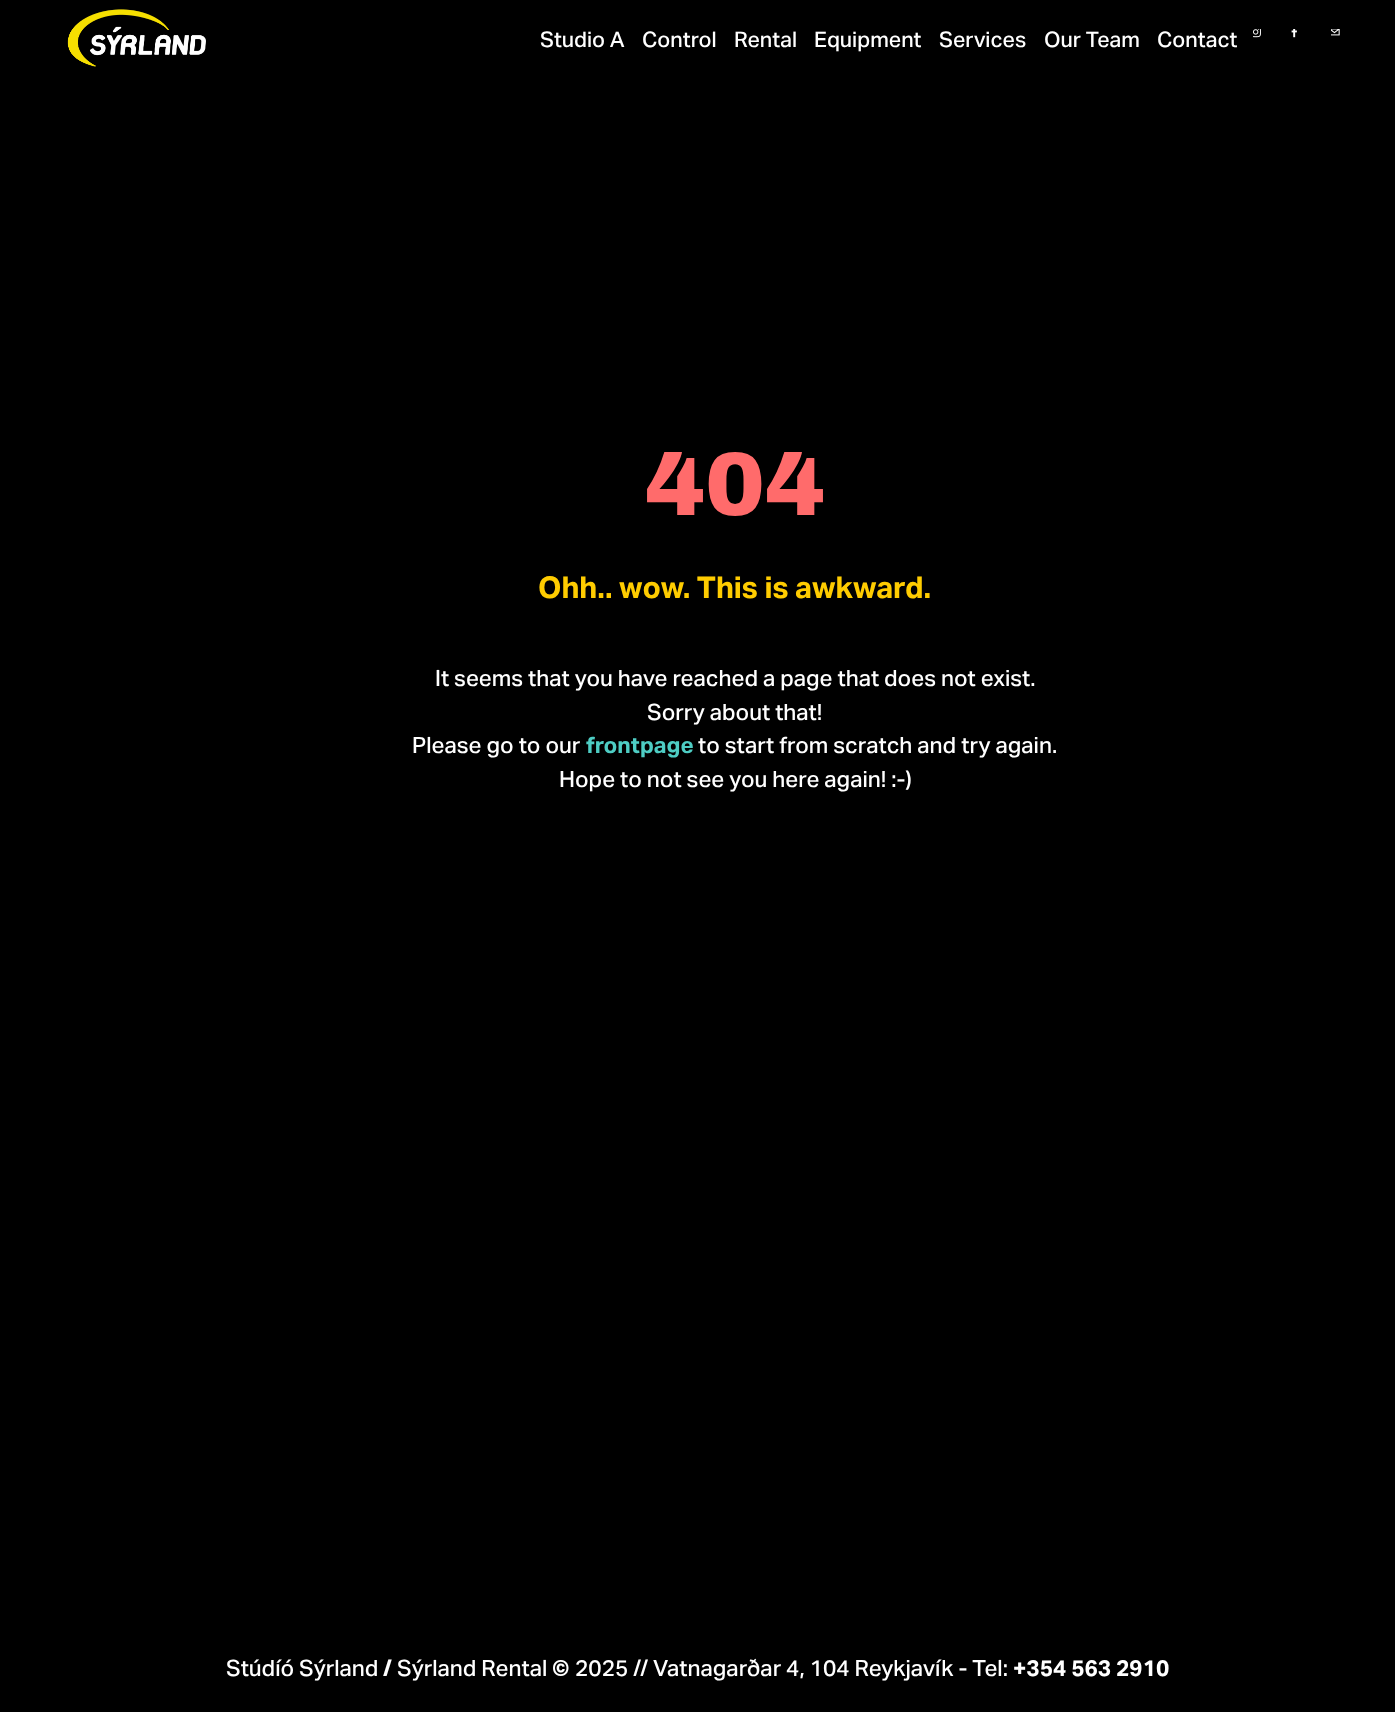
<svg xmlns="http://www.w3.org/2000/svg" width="1395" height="1712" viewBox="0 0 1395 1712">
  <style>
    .t1 { font: 500 21.5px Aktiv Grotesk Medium; fill: #fff; }
    .t2 { font: 900 90px Archivo Black; fill: #ff6b6b; }
    .t3 { font: bold 30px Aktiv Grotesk; fill: #fc0; }
    .t4 { font: 500 22.5px Aktiv Grotesk Medium; fill: #fff; }
    .t5 { font: bold 22.5px Aktiv Grotesk; fill: #4ecdc4; }
    .t6 { font: bold 22.5px Aktiv Grotesk; fill: #fff; }
  </style>
  <rect width="100%" height="100%" fill="#000"/>
  <image x="67" y="9" width="139" height="58" href="images/1.png"/>
  <text x="540" y="47" class="t1">Studio A</text>
  <text x="642" y="47" class="t1">Control</text>
  <text x="734" y="47" class="t1">Rental</text>
  <text x="814" y="47" class="t1">Equipment</text>
  <text x="939" y="47" class="t1">Services</text>
  <text x="1044" y="47" class="t1">Our Team</text>
  <text x="1157" y="47" class="t1">Contact</text>
  <image x="1253" y="29" width="8" height="9" href="images/2.png"/>
  <image x="1291" y="29" width="6" height="9" href="images/3.png"/>
  <image x="1331" y="29" width="9" height="7" href="images/4.png"/>
  <text x="645" y="515" class="t2">404</text>
  <text x="538" y="598" class="t3">Ohh.. wow. This is awkward.</text>
  <text x="435" y="686" class="t4">It seems that you have reached a page that does not exist.</text>
  <text x="647" y="720" class="t4">Sorry about that!</text>
  <text x="412" y="753" class="t4">Please go to our</text>
  <text x="586" y="753" class="t5">frontpage</text>
  <text x="698" y="753" class="t4">to start from scratch and try again.</text>
  <text x="559" y="787" class="t4">Hope to not see you here again! :-)</text>
  <text x="226" y="1676" class="t4">Stúdíó Sýrland</text>
  <text x="383" y="1676" class="t6">/</text>
  <text x="397" y="1676" class="t4">Sýrland Rental</text>
  <text x="552" y="1676" class="t6">©</text>
  <text x="575" y="1676" class="t4">2025 // Vatnagarðar 4, 104 Reykjavík - Tel:</text>
  <text x="1013" y="1676" class="t6">+354 563 2910</text>
</svg>
